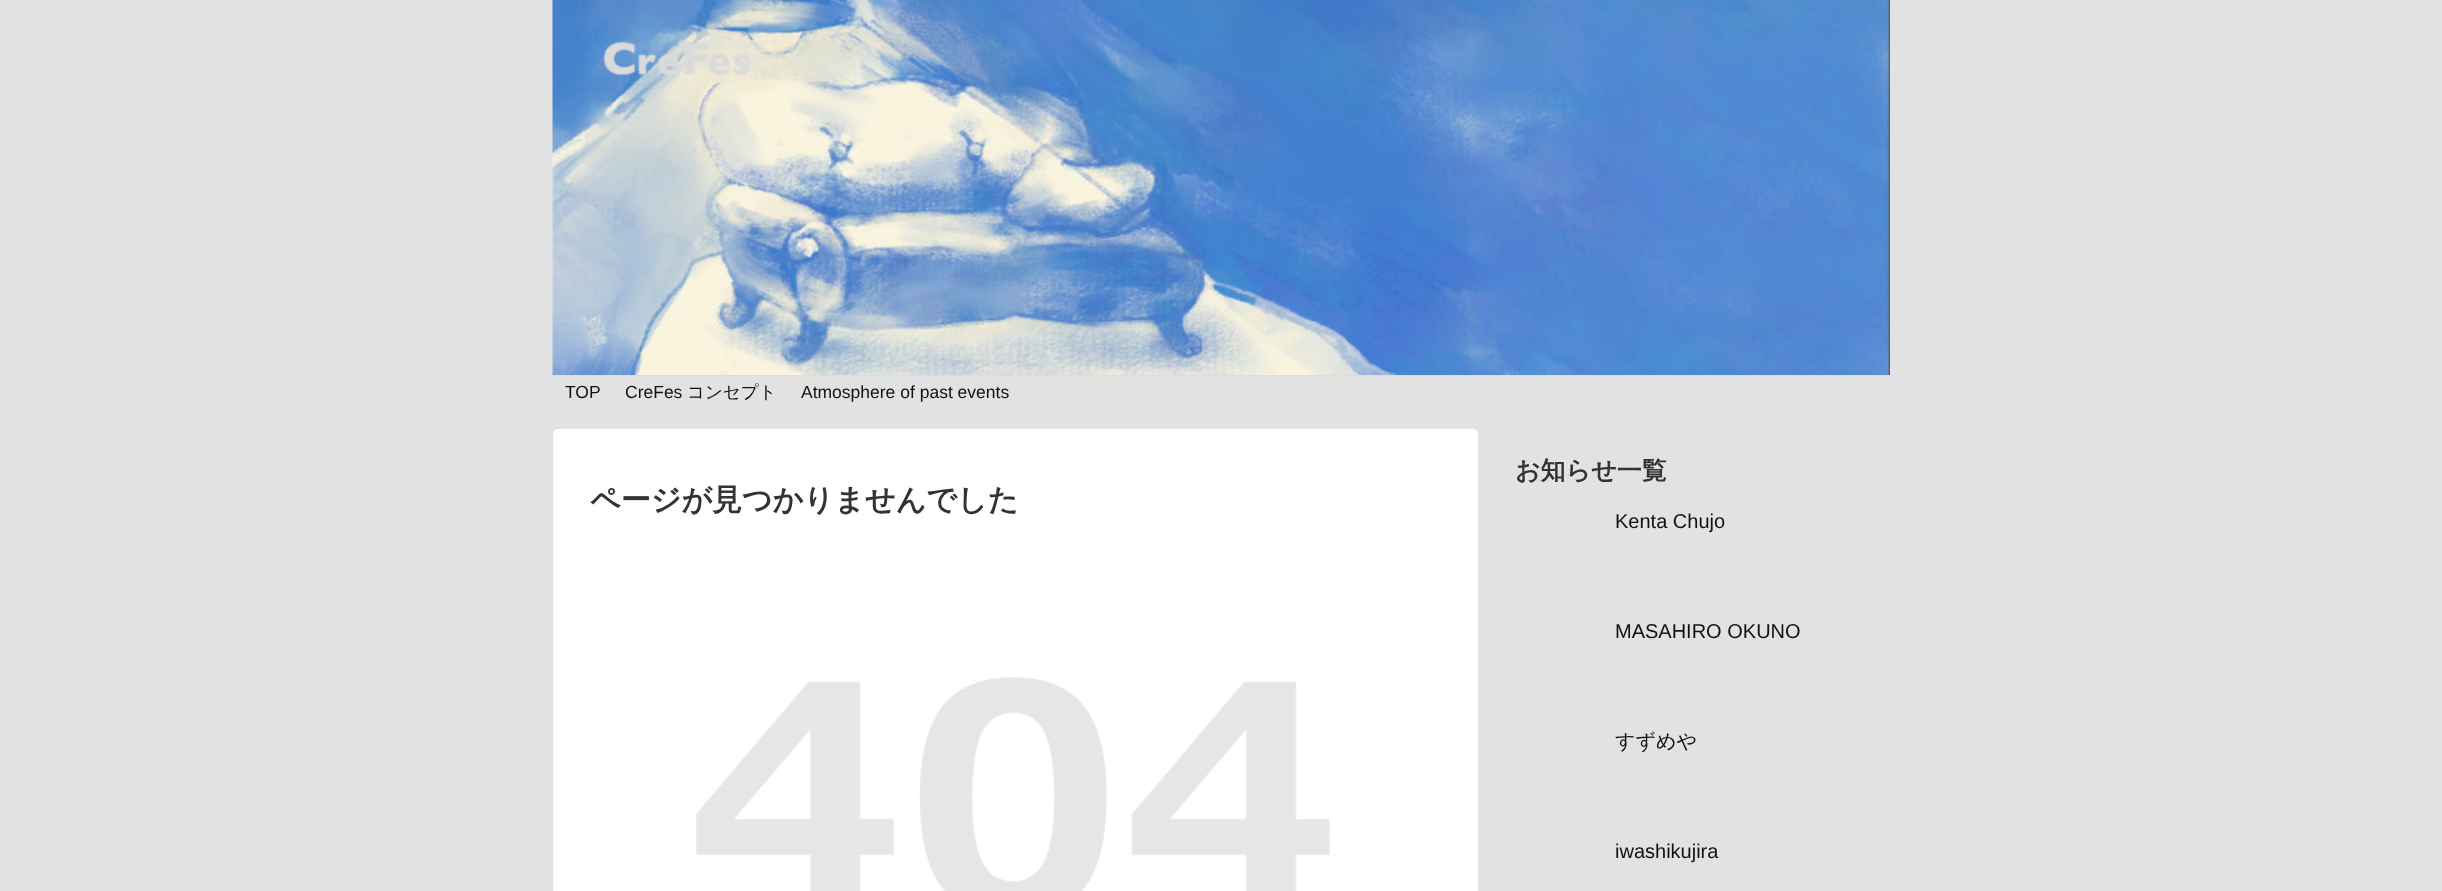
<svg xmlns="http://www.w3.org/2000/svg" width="2442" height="891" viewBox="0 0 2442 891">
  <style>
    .t1 { font: 17.5px Liberation Sans; fill: #111; }
    .t2 { font: 500 17.5px WenQuanYi Zen Hei; fill: #111; }
    .t3 { font: bold 30px WenQuanYi Zen Hei; fill: #333; }
    .t4 { font: bold 25px WenQuanYi Zen Hei; fill: #333; }
    .t5 { font: 20px Liberation Sans; fill: #111; }
    .t6 { font: 500 20px WenQuanYi Zen Hei; fill: #111; }
  </style>
  <rect width="100%" height="100%" fill="#e2e2e2"/>
  <image x="552" y="0" width="1338" height="375" href="images/1.png"/>
  <image x="602" y="41" width="148" height="35" href="images/2.png"/>
  <rect x="0" y="375" width="2442" height="1" fill="#ddd"/>
  <rect x="0" y="409" width="2442" height="1" fill="#ddd"/>
  <text x="565" y="398" class="t1">TOP</text>
  <text x="625" y="398" class="t1">CreFes</text>
  <text x="687" y="398" class="t2">コンセプト</text>
  <text x="801" y="398" class="t1">Atmosphere of past events</text>
  <rect x="553" y="429" width="925" height="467" rx="5" fill="#fff"/>
  <text x="590" y="510" class="t3">ページが見つかりませんでした</text>
  <image x="696" y="677" width="634" height="214" href="images/3.png"/>
  <text x="1515" y="479" class="t4">お知らせ一覧</text>
  <text x="1615" y="528" class="t5">Kenta Chujo</text>
  <text x="1615" y="638" class="t5">MASAHIRO OKUNO</text>
  <text x="1615" y="748" class="t6">すずめや</text>
  <text x="1615" y="858" class="t5">iwashikujira</text>
</svg>
